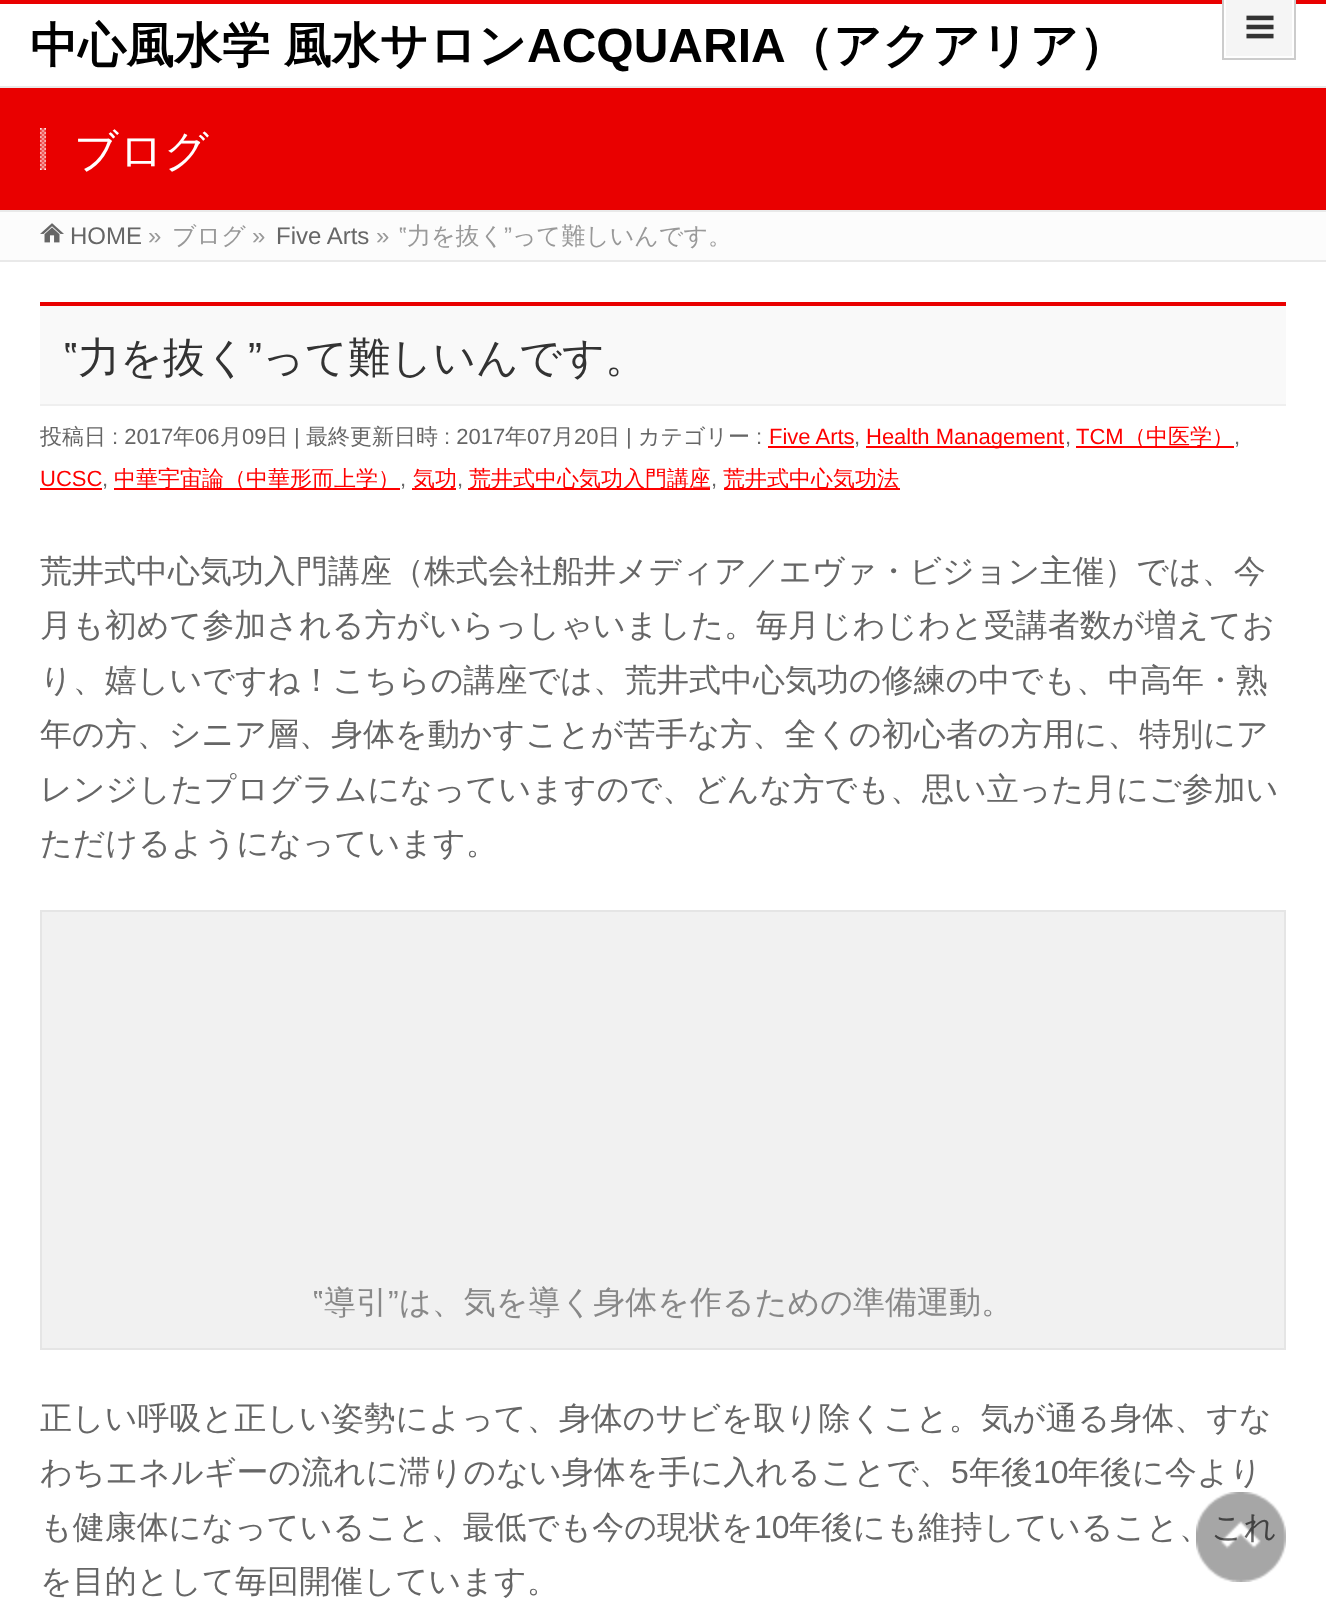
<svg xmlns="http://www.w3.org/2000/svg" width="1326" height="1622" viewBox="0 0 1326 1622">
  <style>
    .t1 { font: bold 48px WenQuanYi Zen Hei; fill: #000; }
    .t2 { font: bold 48px Liberation Sans; fill: #000; }
    .t3 { font: 500 44px WenQuanYi Zen Hei; fill: #fff; }
    .t4 { font: 24px Liberation Sans; fill: #666; }
    .t5 { font: 24px Liberation Sans; fill: #999; }
    .t6 { font: 500 24px WenQuanYi Zen Hei; fill: #999; }
    .t7 { font: 42px Liberation Sans; fill: #333; }
    .t8 { font: 500 42px WenQuanYi Zen Hei; fill: #333; }
    .t9 { font: 500 22px WenQuanYi Zen Hei; fill: #666; }
    .t10 { font: 22px Liberation Sans; fill: #666; }
    .t11 { font: 22px Liberation Sans; fill: #f00; }
    .t12 { font: 500 22px WenQuanYi Zen Hei; fill: #f00; }
    .t13 { font: 500 32px WenQuanYi Zen Hei; fill: #666; }
    .t14 { font: 32px Liberation Sans; fill: #888; }
    .t15 { font: 500 32px WenQuanYi Zen Hei; fill: #888; }
    .t16 { font: 32px Liberation Sans; fill: #666; }
  </style>
  <rect width="100%" height="100%" fill="#fff"/>
  <rect x="0" y="0" width="1326" height="4" fill="#e90000"/>
  <text x="30" y="62" word-spacing="-1" class="t1">中心風水学 風水サロン</text>
  <text x="527" y="62" class="t2">ACQUARIA</text>
  <text x="785" y="62" class="t1">（アクアリア）</text>
  <rect x="1225" y="-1" width="68" height="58" fill="#f5f5f5" stroke="#fefefe" stroke-width="2"/>
  <rect x="1223" y="-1" width="72" height="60" fill="none" stroke="#ccc" stroke-width="2"/>
  <image x="1246" y="15" width="28" height="24" href="images/1.png"/>
  <rect x="0" y="88" width="1326" height="122" fill="#e90000"/>
  <rect x="0" y="86" width="1326" height="2" fill="#e9e9e9"/>
  <rect x="0" y="210" width="1326" height="2" fill="#e9e9e9"/>
  <image x="40" y="128" width="6" height="42" href="images/2.png"/>
  <text x="74" y="166" class="t3">ブログ</text>
  <rect x="0" y="212" width="1326" height="48" fill="#fcfcfc"/>
  <image x="40" y="223" width="24" height="20" href="images/3.png"/>
  <text x="70" y="244" class="t4">HOME</text>
  <text x="148" y="244" class="t5">»</text>
  <text x="172" y="244" class="t6">ブログ</text>
  <text x="252" y="244" class="t5">»</text>
  <text x="276" y="244" class="t4">Five Arts</text>
  <text x="376" y="244" class="t5">»</text>
  <text x="399" y="244" class="t5">‟</text>
  <text x="407" y="244" class="t6">力を抜く</text>
  <text x="504" y="244" class="t5">”</text>
  <text x="512" y="244" class="t6">って難しいんです。</text>
  <rect x="0" y="260" width="1326" height="2" fill="#e9e9e9"/>
  <rect x="40" y="306" width="1246" height="98" fill="#f9f9f9"/>
  <rect x="40" y="302" width="1246" height="4" fill="#e90000"/>
  <rect x="40" y="404" width="1246" height="2" fill="#efefef"/>
  <text x="64" y="372" class="t7">‟</text>
  <text x="78" y="372" class="t8">力を抜く</text>
  <text x="248" y="372" class="t7">”</text>
  <text x="262" y="372" class="t8">って難しいんです。</text>
  <text x="40" y="444" class="t9">投稿日</text>
  <text x="112" y="444" class="t10">: 2017</text>
  <text x="173" y="444" class="t9">年</text>
  <text x="195" y="444" class="t10">06</text>
  <text x="220" y="444" class="t9">月</text>
  <text x="242" y="444" class="t10">09</text>
  <text x="266" y="444" class="t9">日</text>
  <text x="294" y="444" class="t10">|</text>
  <text x="306" y="444" class="t9">最終更新日時</text>
  <text x="444" y="444" class="t10">: 2017</text>
  <text x="505" y="444" class="t9">年</text>
  <text x="527" y="444" class="t10">07</text>
  <text x="552" y="444" class="t9">月</text>
  <text x="574" y="444" class="t10">20</text>
  <text x="598" y="444" class="t9">日</text>
  <text x="626" y="444" class="t10">|</text>
  <text x="638" y="444" class="t9">カテゴリー</text>
  <text x="756" y="444" class="t10">:</text>
  <text x="769" y="444" class="t11">Five Arts</text>
  <text x="854" y="444" class="t10">,</text>
  <rect x="768" y="446" width="86" height="2" fill="#f00"/>
  <rect x="866" y="446" width="198" height="2" fill="#f00"/>
  <text x="866" y="444" class="t11">Health Management</text>
  <text x="1065" y="444" class="t10">,</text>
  <text x="1076" y="444" class="t11">TCM</text>
  <rect x="1076" y="446" width="158" height="2" fill="#f00"/>
  <text x="1124" y="444" class="t12">（中医学）</text>
  <text x="1234" y="444" class="t10">,</text>
  <text x="40" y="486" class="t11">UCSC</text>
  <text x="102" y="486" class="t10">,</text>
  <rect x="40" y="488" width="62" height="2" fill="#f00"/>
  <rect x="114" y="488" width="286" height="2" fill="#f00"/>
  <text x="114" y="486" class="t12">中華宇宙論（中華形而上学）</text>
  <text x="400" y="486" class="t10">,</text>
  <rect x="412" y="488" width="44" height="2" fill="#f00"/>
  <text x="413" y="486" class="t12">気功</text>
  <text x="457" y="486" class="t10">,</text>
  <rect x="468" y="488" width="242" height="2" fill="#f00"/>
  <text x="469" y="486" class="t12">荒井式中心気功入門講座</text>
  <text x="711" y="486" class="t10">,</text>
  <rect x="724" y="488" width="176" height="2" fill="#f00"/>
  <text x="723" y="486" class="t12">荒井式中心気功法</text>
  <text x="40" y="582" class="t13">荒井式中心気功入門講座（株式会社船井メディア／エヴァ・ビジョン主催）では、今</text>
  <text x="40" y="636" class="t13">月も初めて参加される方がいらっしゃいました。毎月じわじわと受講者数が増えてお</text>
  <text x="40" y="691" class="t13">り、嬉しいですね！こちらの講座では、荒井式中心気功の修練の中でも、中高年・熟</text>
  <text x="40" y="745" class="t13">年の方、シニア層、身体を動かすことが苦手な方、全くの初心者の方用に、特別にア</text>
  <text x="40" y="800" class="t13">レンジしたプログラムになっていますので、どんな方でも、思い立った月にご参加い</text>
  <text x="40" y="854" class="t13">ただけるようになっています。</text>
  <rect x="41" y="911" width="1244" height="438" fill="#f1f1f1" stroke="#e5e5e5" stroke-width="2"/>
  <text x="313" y="1313" class="t14">‟</text>
  <text x="324" y="1313" class="t15">導引</text>
  <text x="388" y="1313" class="t14">”</text>
  <text x="399" y="1313" class="t15">は、気を導く身体を作るための準備運動。</text>
  <text x="40" y="1429" class="t13">正しい呼吸と正しい姿勢によって、身体のサビを取り除くこと。気が通る身体、すな</text>
  <text x="40" y="1483" class="t13">わちエネルギーの流れに滞りのない身体を手に入れることで、</text>
  <text x="951" y="1483" class="t16">5</text>
  <text x="969" y="1483" class="t13">年後</text>
  <text x="1033" y="1483" class="t16">10</text>
  <text x="1068" y="1483" class="t13">年後に今より</text>
  <text x="40" y="1538" class="t13">も健康体になっていること、最低でも今の現状を</text>
  <text x="754" y="1538" class="t16">10</text>
  <text x="789" y="1538" class="t13">年後にも維持していること、これ</text>
  <text x="40" y="1592" class="t13">を目的として毎回開催しています。</text>
  <image x="1196" y="1492" width="90" height="90" href="images/4.png"/>
</svg>
